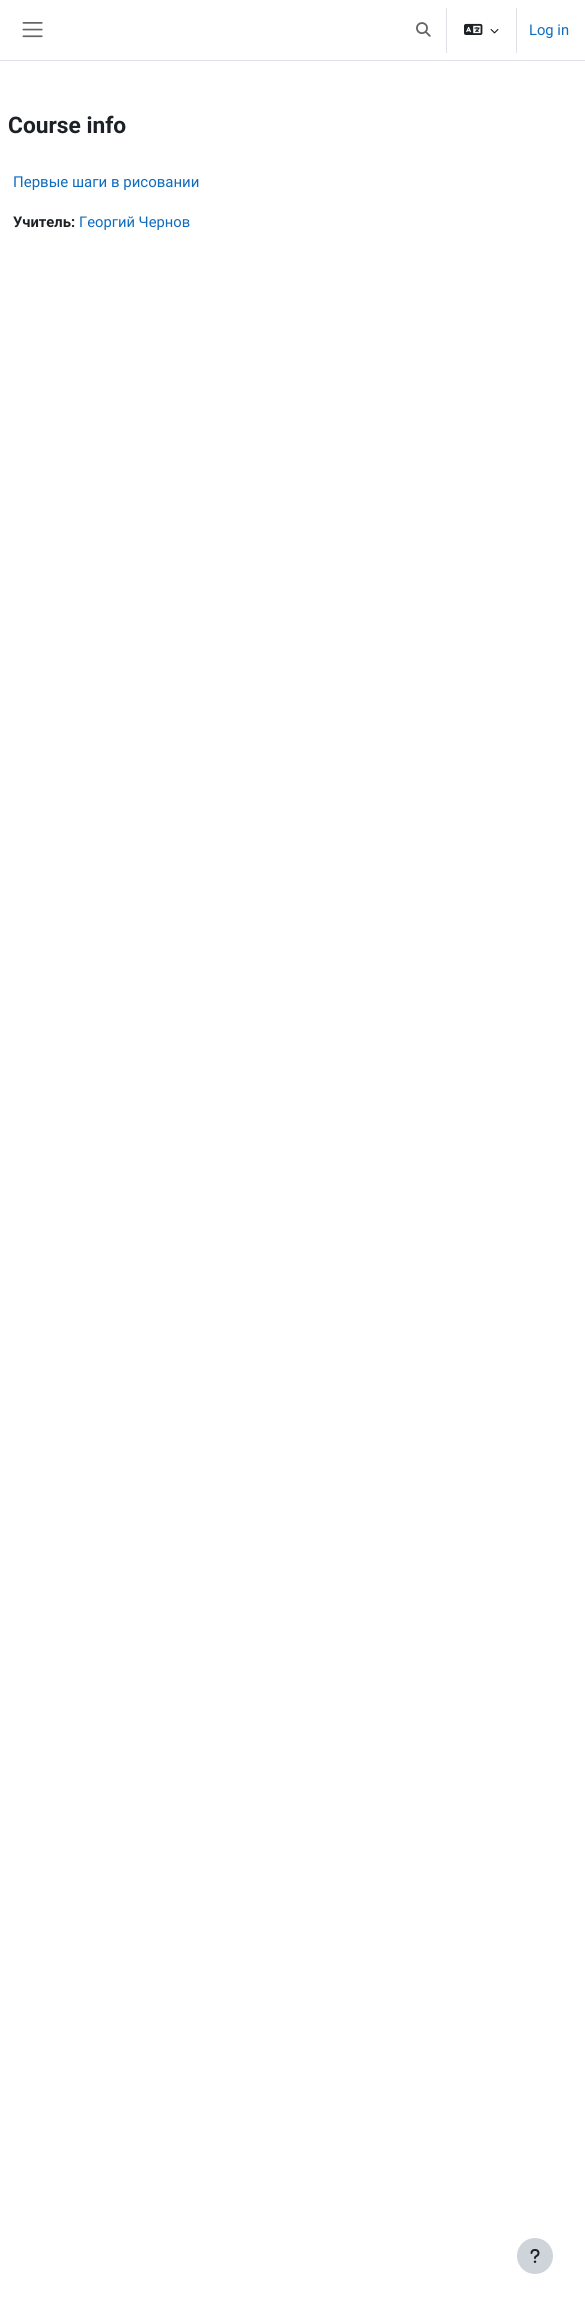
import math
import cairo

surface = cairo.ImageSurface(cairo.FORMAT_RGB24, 585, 2306)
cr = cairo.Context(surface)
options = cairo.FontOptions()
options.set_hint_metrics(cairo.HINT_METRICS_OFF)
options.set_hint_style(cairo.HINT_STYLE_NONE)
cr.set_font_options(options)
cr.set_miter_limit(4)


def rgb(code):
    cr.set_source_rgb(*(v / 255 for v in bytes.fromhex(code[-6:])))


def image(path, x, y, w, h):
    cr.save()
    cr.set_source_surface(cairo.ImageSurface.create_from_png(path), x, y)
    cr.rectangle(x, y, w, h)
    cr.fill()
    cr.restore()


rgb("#ffffff")
cr.paint()
rgb("#dee2e6")
cr.rectangle(0, 60, 585, 1)
cr.fill()
image("img/1.png", 22, 22, 21, 16)
image("img/2.png", 416, 22, 15, 15)
cr.rectangle(446, 8, 1, 45)
cr.fill()
image("img/3.png", 464, 23, 19, 12)
image("img/4.png", 490, 29, 9, 5)
cr.rectangle(516, 8, 1, 45)
cr.fill()
rgb("#ced4da")
cr.arc(535, 2256, 18, 0, 2 * math.pi)
cr.fill()
image("img/5.png", 530, 2249, 10, 14)
cr.select_font_face("Roboto")
cr.set_font_size(14.75)
rgb("#0f6cbf")
cr.move_to(529, 35)
cr.show_text("Log in")
cr.select_font_face("Roboto", cairo.FONT_SLANT_NORMAL, cairo.FONT_WEIGHT_BOLD)
cr.set_font_size(22.75)
rgb("#1d2125")
cr.move_to(8, 133)
cr.show_text("Course info")
cr.select_font_face("Roboto")
cr.set_font_size(15)
rgb("#0f6cbf")
cr.move_to(13, 187)
cr.show_text("Первые шаги в рисовании")
cr.select_font_face("Roboto", cairo.FONT_SLANT_NORMAL, cairo.FONT_WEIGHT_BOLD)
cr.set_font_size(14.75)
rgb("#1d2125")
cr.move_to(13, 227)
cr.show_text("Учитель:")
cr.select_font_face("Roboto")
rgb("#0f6cbf")
cr.move_to(79, 227)
cr.show_text("Георгий Чернов")
surface.write_to_png("page.png")
